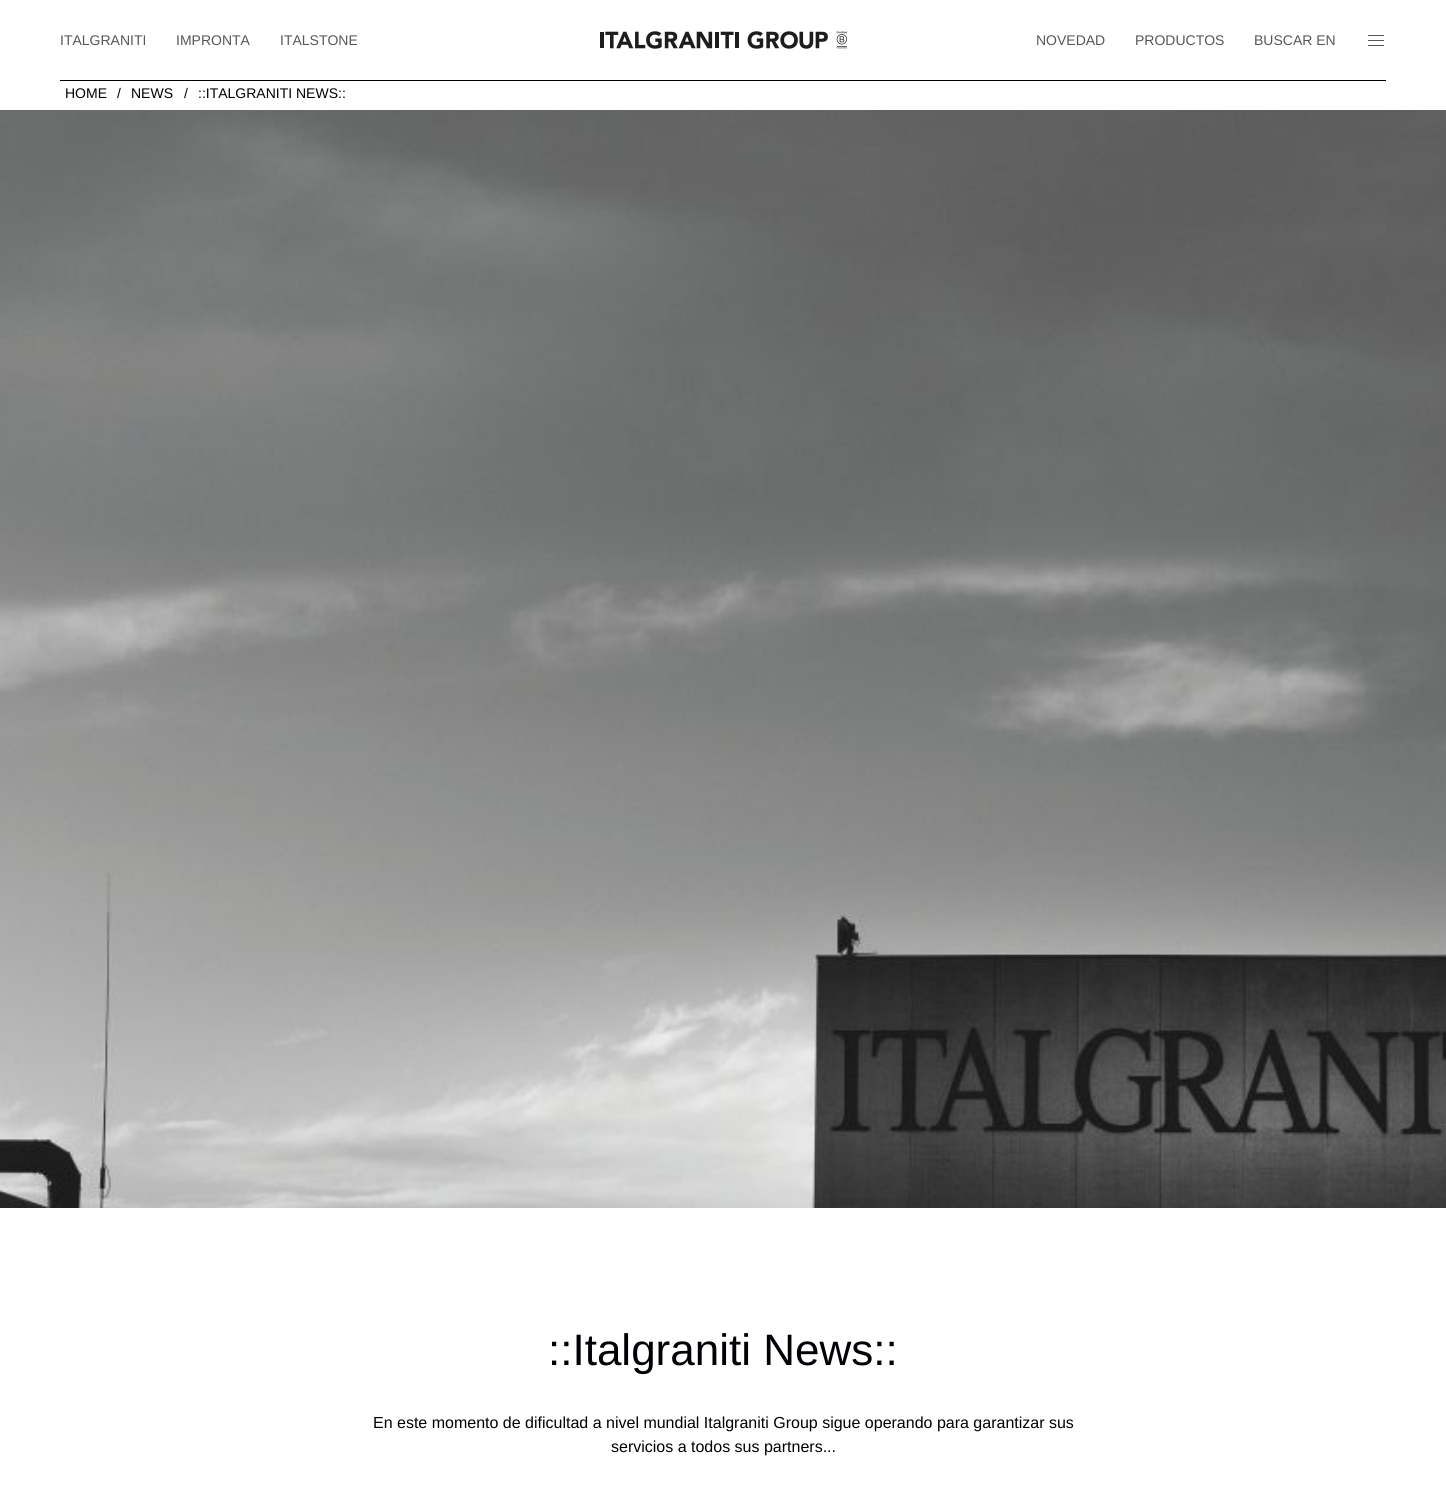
import math
import cairo

surface = cairo.ImageSurface(cairo.FORMAT_RGB24, 1446, 1510)
cr = cairo.Context(surface)
options = cairo.FontOptions()
options.set_hint_metrics(cairo.HINT_METRICS_OFF)
options.set_hint_style(cairo.HINT_STYLE_NONE)
cr.set_font_options(options)
cr.set_miter_limit(4)


def rgb(code):
    cr.set_source_rgb(*(v / 255 for v in bytes.fromhex(code[-6:])))


def image(path, x, y, w, h):
    cr.save()
    cr.set_source_surface(cairo.ImageSurface.create_from_png(path), x, y)
    cr.rectangle(x, y, w, h)
    cr.fill()
    cr.restore()


rgb("#ffffff")
cr.paint()
rgb("#000105")
cr.rectangle(60, 80, 1326, 1)
cr.fill()
image("img/1.png", 600, 31, 247, 18)
for x, y, w, h, color in [
    (1368, 35, 16, 1, "#575756"),
    (1368, 40, 16, 1, "#575756"),
    (1368, 45, 16, 1, "#575756"),
]:
    rgb(color)
    cr.rectangle(x, y, w, h)
    cr.fill()
image("img/2.png", 0, 110, 1446, 1098)
cr.select_font_face("Liberation Sans")
cr.set_font_size(14)
for x, y, s in [
    (60, 45, "ITALGRANITI"),
    (176, 45, "IMPRONTA"),
    (280, 45, "ITALSTONE"),
    (1036, 45, "NOVEDAD"),
    (1135, 45, "PRODUCTOS"),
    (1254, 45, "BUSCAR EN"),
]:
    cr.move_to(x, y)
    cr.show_text(s)
rgb("#000105")
for x, y, s in [
    (65, 98, "HOME"),
    (117, 98, "/"),
    (131, 98, "NEWS"),
    (184, 98, "/"),
    (198, 98, "::ITALGRANITI NEWS::"),
]:
    cr.move_to(x, y)
    cr.show_text(s)
cr.set_font_size(44)
cr.move_to(548, 1365)
cr.show_text("::Italgraniti News::")
cr.set_font_size(16)
cr.move_to(373, 1428)
cr.show_text("En este momento de dificultad a nivel mundial Italgraniti Group sigue operando para garantizar sus")
cr.move_to(611, 1452)
cr.show_text("servicios a todos sus partners...")
surface.write_to_png("page.png")
